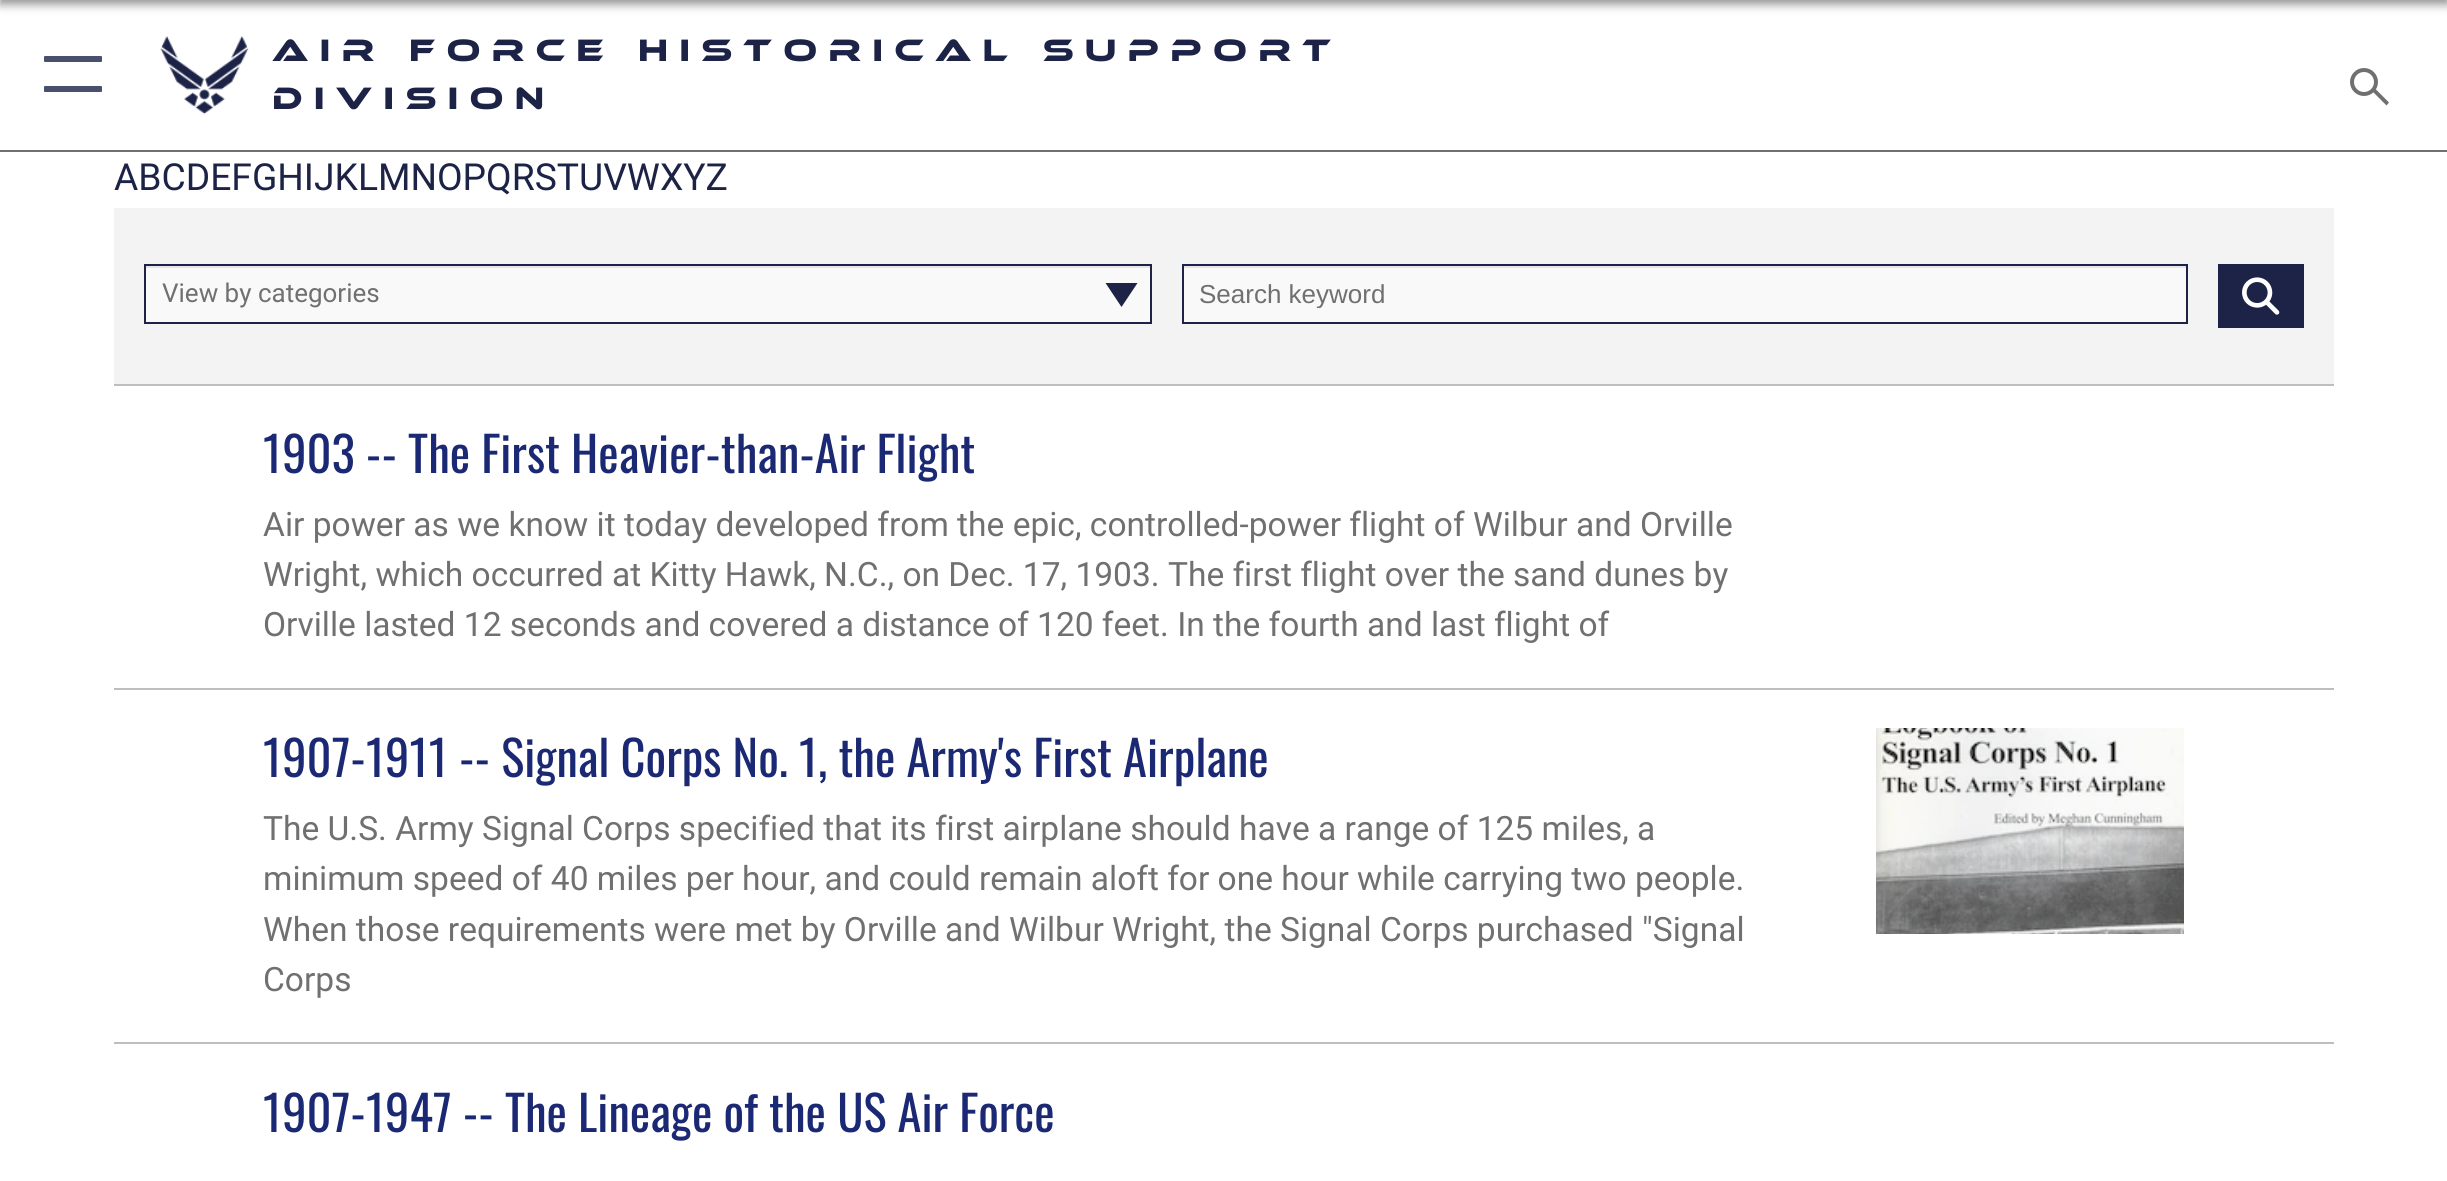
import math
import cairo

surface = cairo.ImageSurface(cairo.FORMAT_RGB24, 2447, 1181)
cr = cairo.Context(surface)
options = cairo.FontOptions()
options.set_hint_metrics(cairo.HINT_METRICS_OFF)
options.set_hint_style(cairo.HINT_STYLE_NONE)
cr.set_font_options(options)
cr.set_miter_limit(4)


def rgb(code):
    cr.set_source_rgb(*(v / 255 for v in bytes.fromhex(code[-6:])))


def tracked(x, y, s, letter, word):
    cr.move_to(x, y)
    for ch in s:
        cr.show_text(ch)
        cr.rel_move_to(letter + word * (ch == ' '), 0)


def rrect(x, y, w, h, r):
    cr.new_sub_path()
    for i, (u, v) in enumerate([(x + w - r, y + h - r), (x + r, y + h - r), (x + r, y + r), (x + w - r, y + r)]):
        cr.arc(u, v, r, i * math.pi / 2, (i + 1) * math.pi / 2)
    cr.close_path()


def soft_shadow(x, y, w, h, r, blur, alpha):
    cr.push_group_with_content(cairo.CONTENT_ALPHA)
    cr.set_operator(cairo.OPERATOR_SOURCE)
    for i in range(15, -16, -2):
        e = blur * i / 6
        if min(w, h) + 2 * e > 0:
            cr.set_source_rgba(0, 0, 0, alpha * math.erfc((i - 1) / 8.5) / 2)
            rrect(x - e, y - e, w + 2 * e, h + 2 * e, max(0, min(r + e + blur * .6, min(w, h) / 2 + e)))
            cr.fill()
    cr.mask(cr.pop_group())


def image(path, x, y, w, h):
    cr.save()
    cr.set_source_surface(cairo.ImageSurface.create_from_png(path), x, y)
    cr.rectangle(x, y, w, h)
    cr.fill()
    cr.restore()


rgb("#ffffff")
cr.paint()
rgb("#1a1a1a")
soft_shadow(0, -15, 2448, 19, 0, 5, 0.5)
rgb("#707070")
cr.rectangle(0, 150, 2447, 2)
cr.fill()
rgb("#49506d")
rrect(44, 56, 58, 6, 1)
cr.fill()
rrect(44, 86, 58, 6, 1)
cr.fill()
image("img/1.png", 160, 36, 89, 79)
cr.arc(2364, 82, 12, 0, 2 * math.pi)
rgb("#707070")
cr.set_line_width(4)
cr.stroke()
cr.new_path()
cr.move_to(2375, 88.5)
cr.line_to(2389, 102.5)
cr.line_to(2386.5, 105.5)
cr.line_to(2372, 91)
cr.close_path()
cr.fill()
for x, y, w, h, color in [
    (114, 208, 2220, 176, "#f3f3f3"),
    (146, 268, 1004, 54, "#f9f9f9"),
    (146, 266, 1004, 2, "#e6e6e6"),
]:
    rgb(color)
    cr.rectangle(x, y, w, h)
    cr.fill()
cr.rectangle(145, 265, 1006, 58)
rgb("#1c2347")
cr.set_line_width(2)
cr.stroke()
cr.new_path()
cr.move_to(1105.5, 283)
cr.line_to(1137.5, 283)
cr.line_to(1121.5, 307)
cr.close_path()
cr.fill()
rgb("#f9f9f9")
cr.rectangle(1184, 268, 1002, 54)
cr.fill()
rgb("#e6e6e6")
cr.rectangle(1184, 266, 1002, 2)
cr.fill()
cr.rectangle(1183, 265, 1004, 58)
rgb("#1c2347")
cr.stroke()
cr.rectangle(2218, 264, 86, 64)
cr.fill()
image("img/2.png", 2242, 277, 38, 38)
rgb("#c1bdbd")
cr.rectangle(114, 384, 2220, 2)
cr.fill()
cr.rectangle(114, 688, 2220, 2)
cr.fill()
image("img/3.png", 1876, 728, 308, 206)
cr.rectangle(114, 1042, 2220, 2)
cr.fill()
cr.select_font_face("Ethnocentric")
cr.set_font_size(32)
rgb("#1c2347")
tracked(272, 61, "Air Force Historical Support", 11.2, 0)
tracked(272, 109, "Division", 11.2, 0)
cr.select_font_face("Roboto")
cr.set_font_size(37.25)
cr.move_to(114, 190)
cr.show_text("ABCDEFGHIJKLMNOPQRSTUVWXYZ")
cr.set_font_size(26)
rgb("#707070")
cr.move_to(162, 302)
cr.show_text("View by categories")
cr.save()
cr.rectangle(1200, 278, 970, 30)
cr.clip()
cr.select_font_face("Liberation Sans")
cr.move_to(1199, 303)
cr.show_text("Search keyword")
cr.restore()
cr.select_font_face("Oswald")
cr.set_font_size(48.5)
rgb("#1b2974")
cr.move_to(263, 473)
cr.show_text("1903 -- The First Heavier-than-Air Flight")
cr.select_font_face("Roboto")
cr.set_font_size(33.55)
rgb("#707070")
for x, y, s in [
    (263, 536, "Air power as we know it today developed from the epic, controlled-power flight of Wilbur and Orville"),
    (263, 586, "Wright, which occurred at Kitty Hawk, N.C., on Dec. 17, 1903. The first flight over the sand dunes by"),
    (263, 636, "Orville lasted 12 seconds and covered a distance of 120 feet. In the fourth and last flight of"),
]:
    cr.move_to(x, y)
    cr.show_text(s)
cr.select_font_face("Oswald")
cr.set_font_size(48.5)
rgb("#1b2974")
cr.move_to(263, 777)
cr.show_text("1907-1911 -- Signal Corps No. 1, the Army's First Airplane")
cr.select_font_face("Roboto")
cr.set_font_size(33.55)
rgb("#707070")
for x, y, s in [
    (263, 840, "The U.S. Army Signal Corps specified that its first airplane should have a range of 125 miles, a"),
    (263, 890, "minimum speed of 40 miles per hour, and could remain aloft for one hour while carrying two people."),
    (263, 941, "When those requirements were met by Orville and Wilbur Wright, the Signal Corps purchased \"Signal"),
    (263, 991, "Corps"),
]:
    cr.move_to(x, y)
    cr.show_text(s)
cr.select_font_face("Oswald")
cr.set_font_size(48.5)
rgb("#1b2974")
cr.move_to(263, 1132)
cr.show_text("1907-1947 -- The Lineage of the US Air Force")
surface.write_to_png("page.png")
